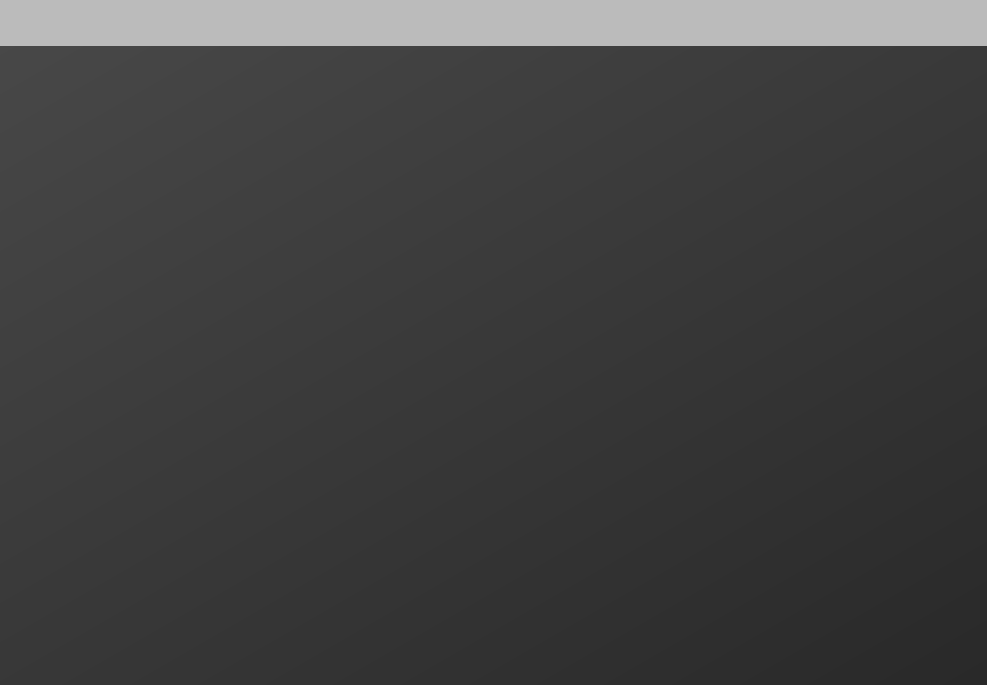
import math
import cairo

surface = cairo.ImageSurface(cairo.FORMAT_RGB24, 987, 685)
cr = cairo.Context(surface)
options = cairo.FontOptions()
options.set_hint_metrics(cairo.HINT_METRICS_OFF)
options.set_hint_style(cairo.HINT_STYLE_NONE)
cr.set_font_options(options)
cr.set_miter_limit(4)


def rgb(code):
    cr.set_source_rgb(*(v / 255 for v in bytes.fromhex(code[-6:])))


rgb("#ffffff")
cr.paint()
gradient = cairo.LinearGradient(943, 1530, 44, -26)
gradient.add_color_stop_rgba(0, 0.078, 0.078, 0.078, 1)
gradient.add_color_stop_rgba(1, 0.286, 0.286, 0.286, 1)
cr.set_source(gradient)
cr.rectangle(0, 46, 987, 639)
cr.fill()
rgb("#bbbbbb")
cr.rectangle(0, 0, 987, 46)
cr.fill()
surface.write_to_png("page.png")
